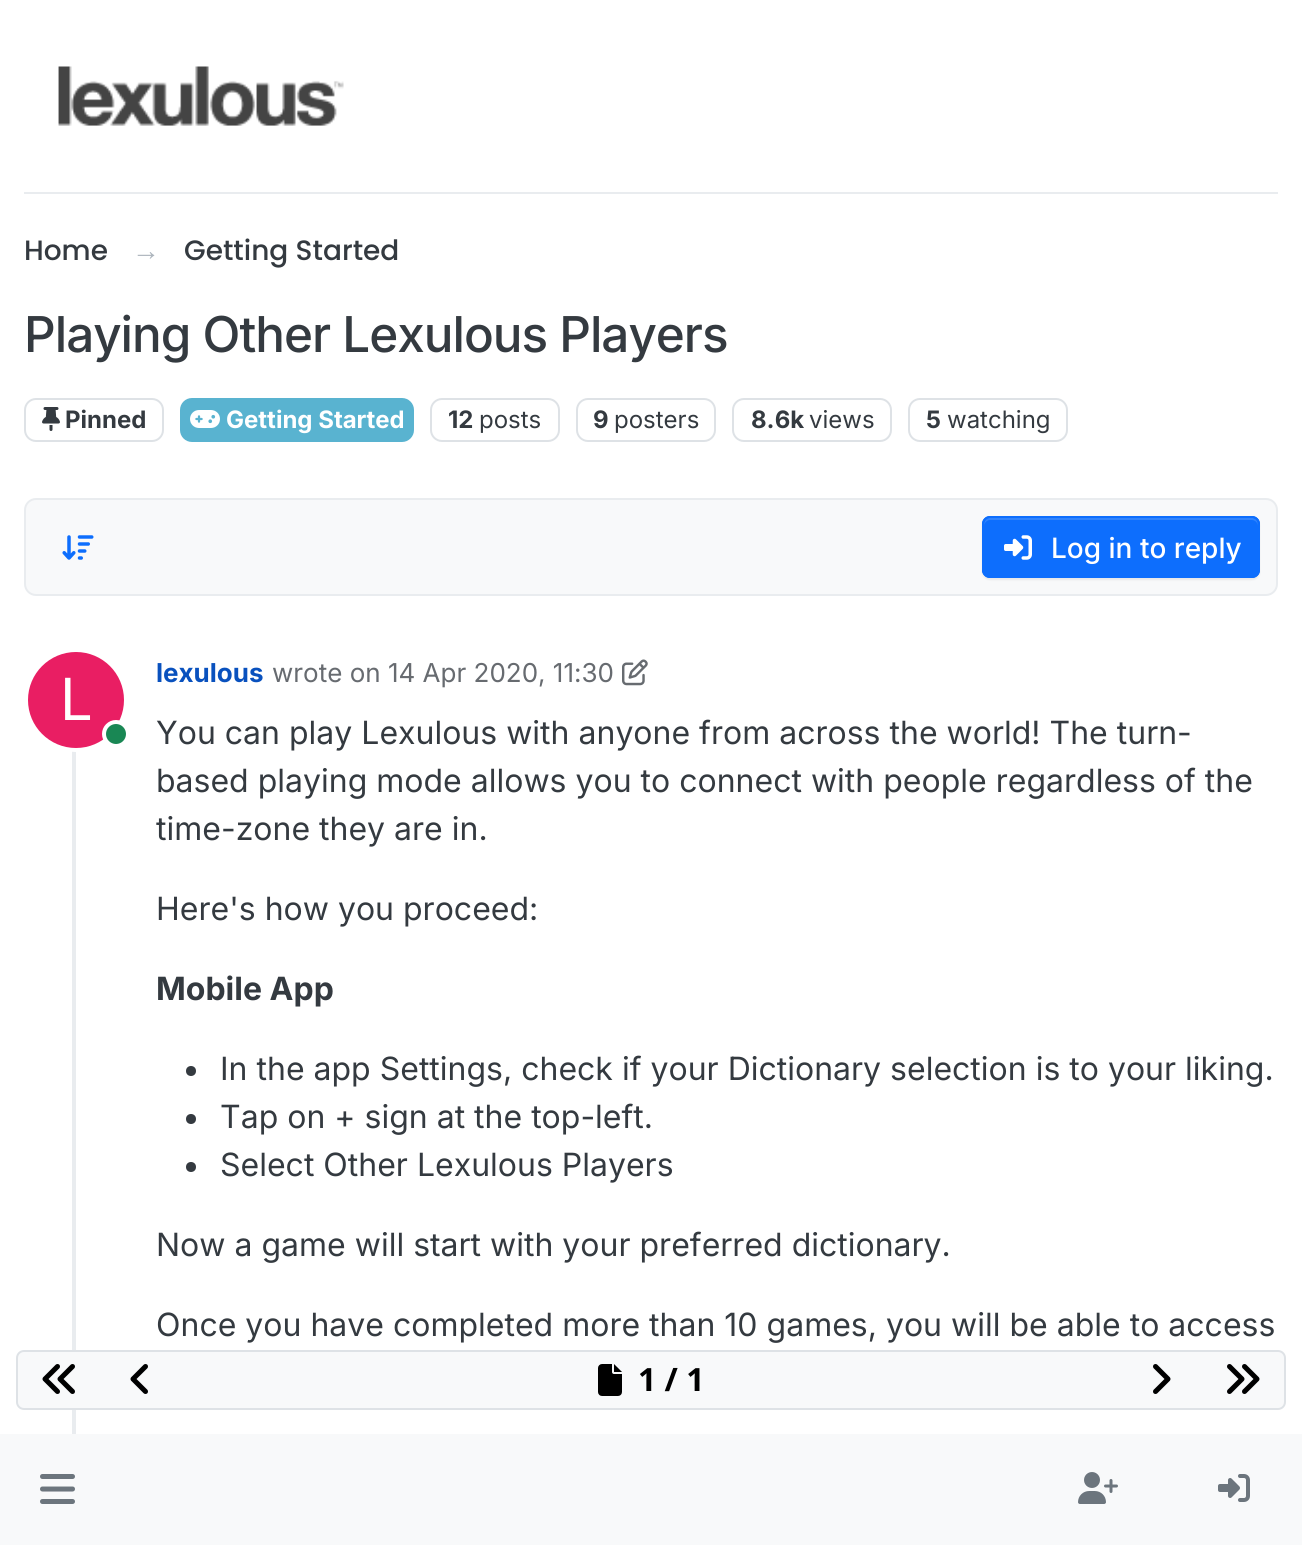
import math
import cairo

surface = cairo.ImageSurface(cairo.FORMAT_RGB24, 1302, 1545)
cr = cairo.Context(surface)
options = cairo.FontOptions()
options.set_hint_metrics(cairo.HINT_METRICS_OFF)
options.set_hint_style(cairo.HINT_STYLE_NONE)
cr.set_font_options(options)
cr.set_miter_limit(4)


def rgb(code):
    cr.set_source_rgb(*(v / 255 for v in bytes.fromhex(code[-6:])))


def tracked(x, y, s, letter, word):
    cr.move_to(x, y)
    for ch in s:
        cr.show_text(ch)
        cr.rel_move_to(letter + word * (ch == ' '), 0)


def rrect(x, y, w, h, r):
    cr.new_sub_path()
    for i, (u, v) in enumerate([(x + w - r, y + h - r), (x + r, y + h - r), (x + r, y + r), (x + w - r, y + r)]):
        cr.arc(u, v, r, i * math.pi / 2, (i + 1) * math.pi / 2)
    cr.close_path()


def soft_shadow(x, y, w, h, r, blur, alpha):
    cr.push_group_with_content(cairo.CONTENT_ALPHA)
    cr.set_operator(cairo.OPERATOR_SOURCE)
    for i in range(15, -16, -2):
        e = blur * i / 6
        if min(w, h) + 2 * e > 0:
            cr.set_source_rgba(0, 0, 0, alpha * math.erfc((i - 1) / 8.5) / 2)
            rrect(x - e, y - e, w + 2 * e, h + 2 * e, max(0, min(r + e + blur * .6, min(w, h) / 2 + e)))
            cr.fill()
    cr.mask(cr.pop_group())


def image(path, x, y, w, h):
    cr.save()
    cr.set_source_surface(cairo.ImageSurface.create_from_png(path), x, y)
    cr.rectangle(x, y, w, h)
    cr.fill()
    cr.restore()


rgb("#ffffff")
cr.paint()
rgb("#e9ecef")
cr.rectangle(24, 192, 1254, 2)
cr.fill()
image("img/1.png", 58, 66, 286, 60)
rrect(25, 399, 138, 42, 11)
rgb("#dee2e6")
cr.stroke()
image("img/2.png", 42, 407, 18, 24)
rgb("#59b3d0")
rrect(181, 399, 232, 42, 11)
cr.fill_preserve()
cr.stroke()
image("img/3.png", 190, 410, 30, 18)
rrect(431, 399, 128, 42, 11)
rgb("#dee2e6")
cr.stroke()
rrect(577, 399, 138, 42, 11)
cr.stroke()
rrect(733, 399, 158, 42, 11)
cr.stroke()
rrect(909, 399, 158, 42, 11)
cr.stroke()
rgb("#f8f9fa")
rrect(25, 499, 1252, 96, 11)
cr.fill_preserve()
rgb("#e9ecef")
cr.stroke()
image("img/4.png", 62, 535, 32, 25)
rgb("#000000")
soft_shadow(982, 518, 278, 62, 8, 1, 0.07)
rgb("#0d6efd")
rrect(982, 516, 278, 62, 8)
cr.fill()
rgb("#3184fd")
cr.new_path()
cr.move_to(990, 520)
cr.line_to(1252, 520)
cr.curve_to(1255, 520, 1258, 523, 1258, 526)
cr.curve_to(1258, 523, 1257, 519, 1253, 518)
cr.line_to(989, 518)
cr.curve_to(985, 519, 984, 523, 984, 526)
cr.curve_to(984, 523, 987, 520, 990, 520)
cr.close_path()
cr.fill()
rrect(983, 517, 276, 60, 7)
rgb("#0d6efd")
cr.stroke()
image("img/5.png", 1004, 535, 28, 25)
rgb("#e9ecef")
cr.rectangle(72, 652, 4, 782)
cr.fill()
cr.arc(76, 700, 50, 0, 2 * math.pi)
rgb("#ffffff")
cr.set_line_width(4)
cr.stroke()
rgb("#e91e63")
cr.arc(76, 700, 48, 0, 2 * math.pi)
cr.fill()
rgb("#198754")
cr.arc(116, 734, 12, 0, 2 * math.pi)
cr.fill_preserve()
rgb("#ffffff")
cr.stroke()
image("img/6.png", 622, 659, 26, 27)
rgb("#343a40")
cr.arc(191, 1071, 5, 0, 2 * math.pi)
cr.fill()
cr.arc(191, 1119, 5, 0, 2 * math.pi)
cr.fill()
cr.arc(191, 1167, 5, 0, 2 * math.pi)
cr.fill()
rgb("#f8f9fa")
rrect(17, 1351, 1268, 58, 7)
cr.fill_preserve()
rgb("#dee2e6")
cr.set_line_width(2)
cr.stroke()
image("img/7.png", 42, 1364, 33, 30)
image("img/8.png", 130, 1364, 18, 30)
image("img/9.png", 598, 1364, 24, 32)
image("img/10.png", 1153, 1364, 18, 30)
image("img/11.png", 1227, 1364, 33, 30)
rgb("#f8f9fa")
cr.rectangle(0, 1434, 1302, 111)
cr.fill()
image("img/12.png", 40, 1474, 35, 30)
image("img/13.png", 1078, 1472, 40, 32)
image("img/14.png", 1218, 1474, 32, 28)
cr.select_font_face("Poppins Medium")
cr.set_font_size(28)
rgb("#343a40")
cr.move_to(24, 260)
cr.show_text("Home")
cr.select_font_face("Liberation Sans")
rgb("#adb5bd")
cr.move_to(132, 260)
cr.show_text("→")
cr.select_font_face("Poppins Medium")
rgb("#343a40")
cr.move_to(184, 260)
cr.show_text("Getting Started")
cr.select_font_face("Inter Medium")
cr.set_font_size(49.4)
tracked(24, 352, "Playing Other Lexulous Players", -1, 0)
cr.select_font_face("Inter", cairo.FONT_SLANT_NORMAL, cairo.FONT_WEIGHT_BOLD)
cr.set_font_size(24)
cr.move_to(65, 428)
cr.show_text("Pinned")
rgb("#ffffff")
cr.move_to(226, 428)
cr.show_text("Getting Started")
rgb("#343a40")
cr.move_to(448, 428)
cr.show_text("12")
cr.select_font_face("Inter")
cr.move_to(479, 428)
cr.show_text("posts")
cr.select_font_face("Inter", cairo.FONT_SLANT_NORMAL, cairo.FONT_WEIGHT_BOLD)
cr.move_to(593, 428)
cr.show_text("9")
cr.select_font_face("Inter")
cr.move_to(614, 428)
cr.show_text("posters")
cr.select_font_face("Inter", cairo.FONT_SLANT_NORMAL, cairo.FONT_WEIGHT_BOLD)
cr.move_to(751, 428)
cr.show_text("8.6k")
cr.select_font_face("Inter")
cr.move_to(809, 428)
cr.show_text("views")
cr.select_font_face("Inter", cairo.FONT_SLANT_NORMAL, cairo.FONT_WEIGHT_BOLD)
cr.move_to(926, 428)
cr.show_text("5")
cr.select_font_face("Inter")
cr.move_to(947, 428)
cr.show_text("watching")
cr.select_font_face("Inter Medium")
cr.set_font_size(28)
rgb("#ffffff")
cr.move_to(1051, 558)
cr.show_text("Log in to reply")
cr.select_font_face("Inter")
cr.set_font_size(58)
cr.move_to(60, 720)
cr.show_text("L")
cr.select_font_face("Inter", cairo.FONT_SLANT_NORMAL, cairo.FONT_WEIGHT_BOLD)
cr.set_font_size(26)
rgb("#0951be")
cr.move_to(156, 682)
cr.show_text("lexulous")
cr.select_font_face("Inter")
rgb("#676b70")
cr.move_to(272, 682)
cr.show_text("wrote on 14 Apr 2020, 11:30")
cr.set_font_size(32)
rgb("#343a40")
for x, y, s in [
    (156, 744, "You can play Lexulous with anyone from across the world! The turn-"),
    (156, 792, "based playing mode allows you to connect with people regardless of the"),
    (156, 840, "time-zone they are in."),
    (156, 920, "Here's how you proceed:"),
]:
    cr.move_to(x, y)
    cr.show_text(s)
cr.select_font_face("Inter", cairo.FONT_SLANT_NORMAL, cairo.FONT_WEIGHT_BOLD)
cr.move_to(156, 1000)
cr.show_text("Mobile App")
cr.select_font_face("Inter")
for x, y, s in [
    (220, 1080, "In the app Settings, check if your Dictionary selection is to your liking."),
    (220, 1128, "Tap on + sign at the top-left."),
    (220, 1176, "Select Other Lexulous Players"),
    (156, 1256, "Now a game will start with your preferred dictionary."),
    (156, 1336, "Once you have completed more than 10 games, you will be able to access"),
]:
    cr.move_to(x, y)
    cr.show_text(s)
cr.select_font_face("Noto Sans", cairo.FONT_SLANT_NORMAL, cairo.FONT_WEIGHT_BOLD)
rgb("#000000")
cr.move_to(638, 1391)
cr.show_text("1 / 1")
surface.write_to_png("page.png")
